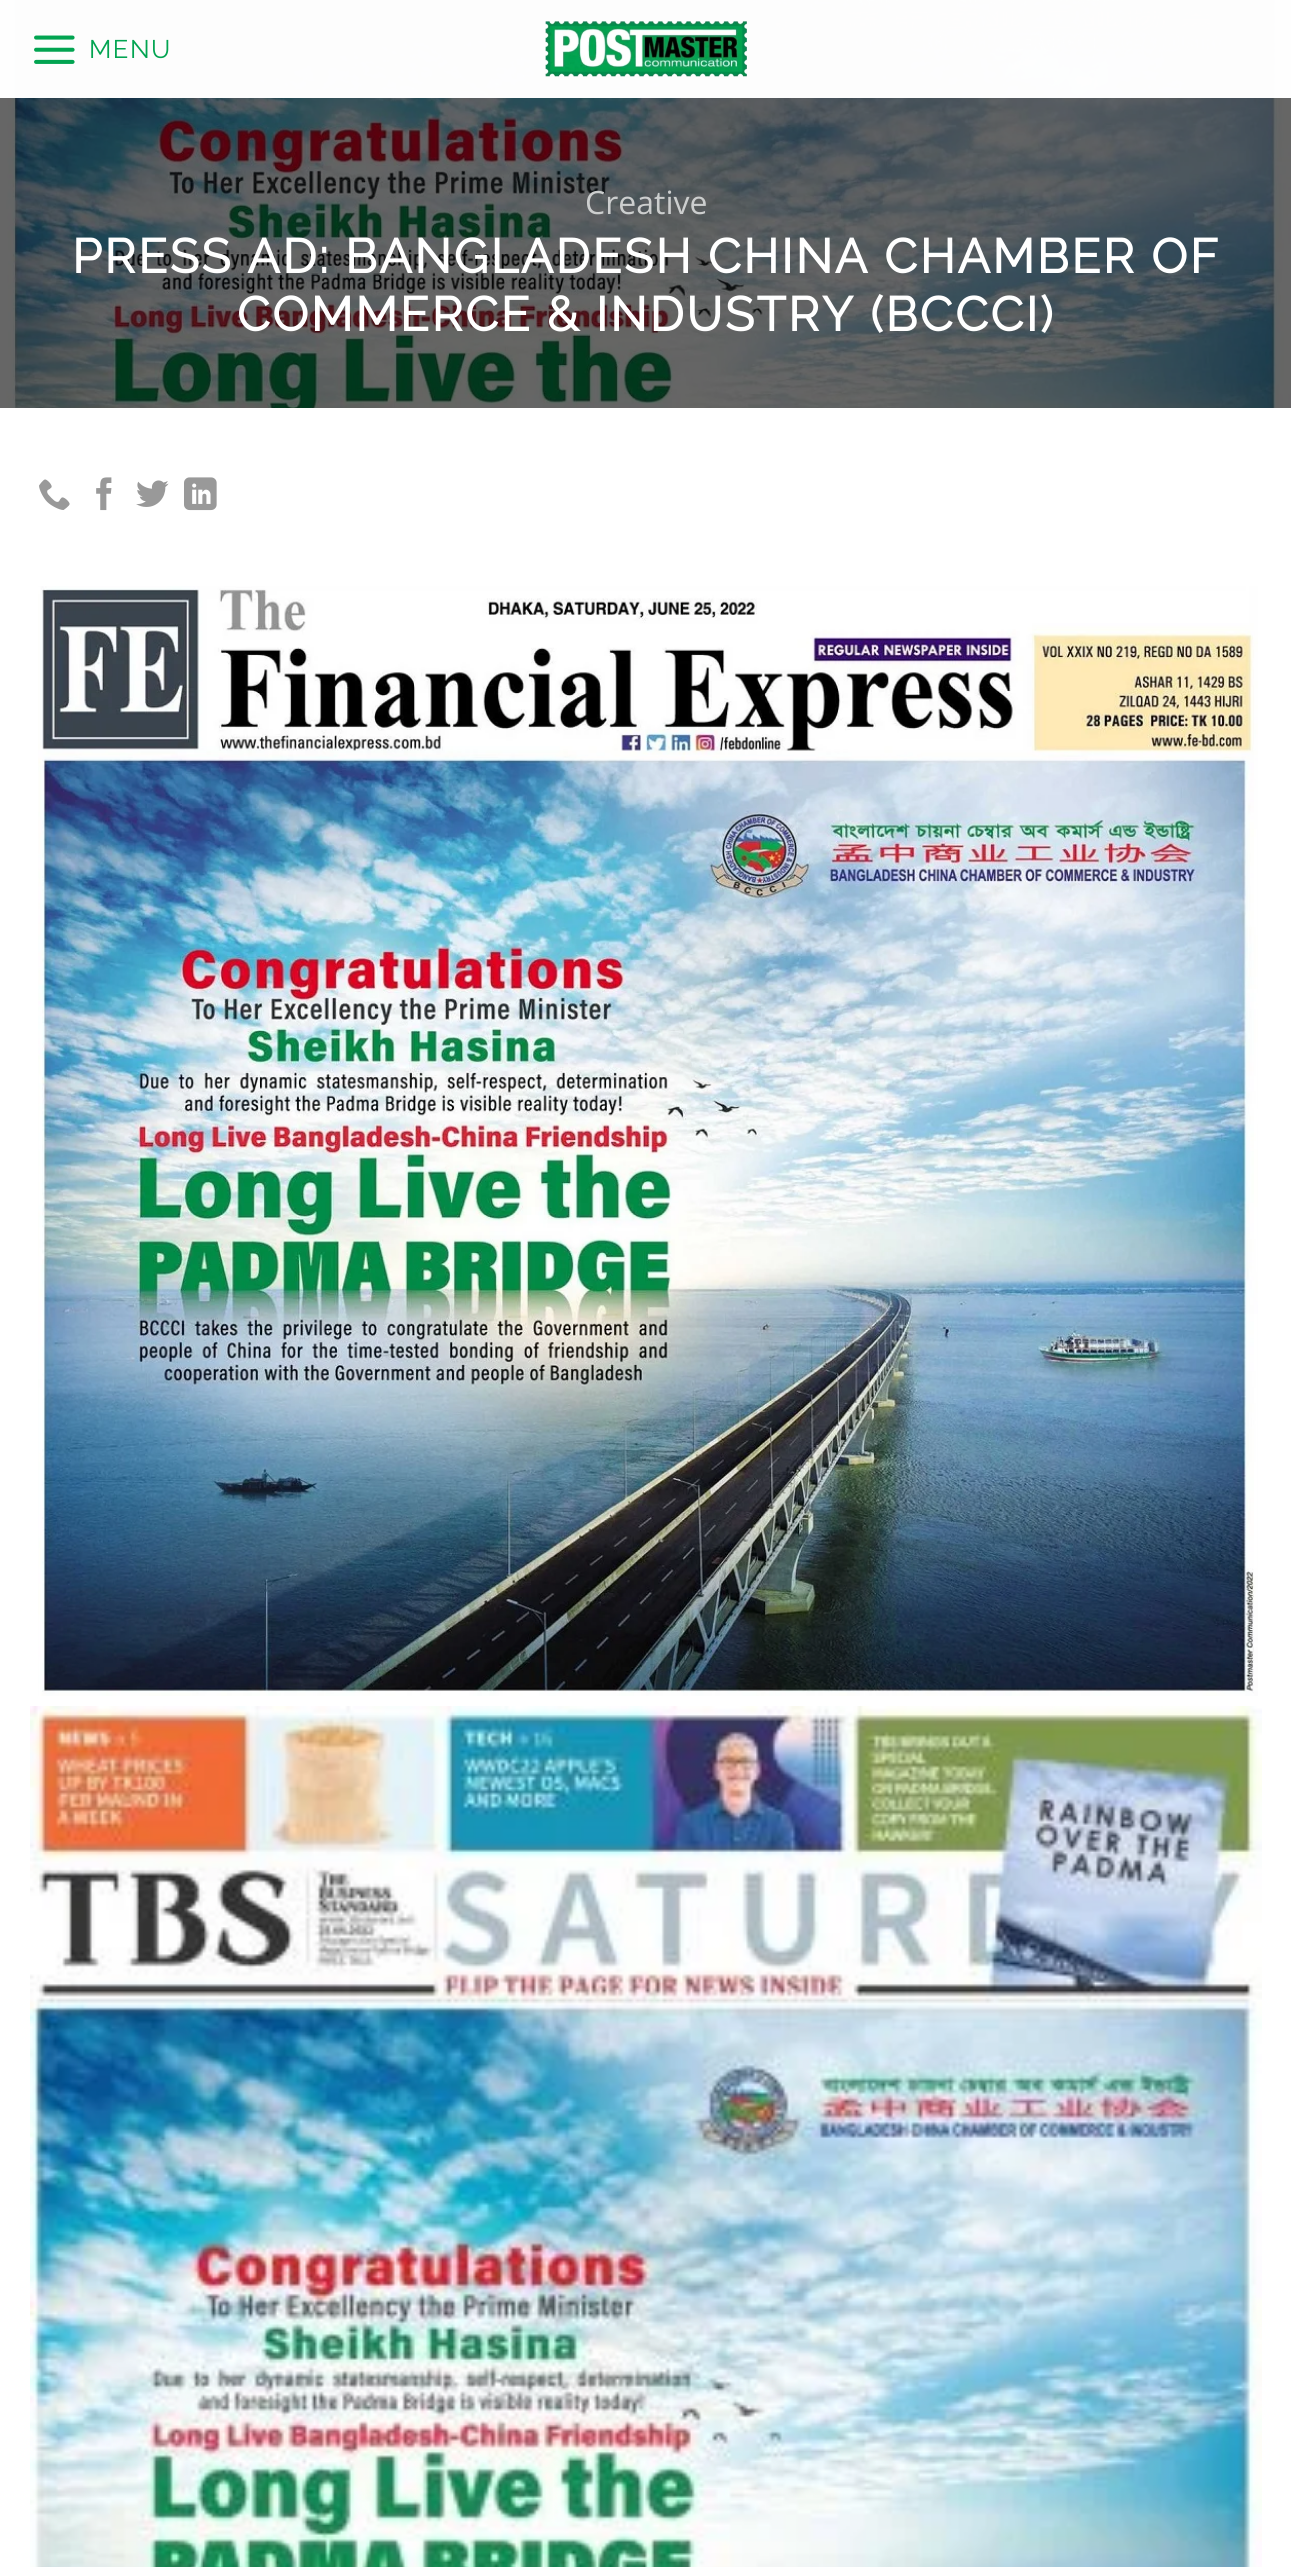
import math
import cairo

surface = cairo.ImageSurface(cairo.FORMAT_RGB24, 1291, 2567)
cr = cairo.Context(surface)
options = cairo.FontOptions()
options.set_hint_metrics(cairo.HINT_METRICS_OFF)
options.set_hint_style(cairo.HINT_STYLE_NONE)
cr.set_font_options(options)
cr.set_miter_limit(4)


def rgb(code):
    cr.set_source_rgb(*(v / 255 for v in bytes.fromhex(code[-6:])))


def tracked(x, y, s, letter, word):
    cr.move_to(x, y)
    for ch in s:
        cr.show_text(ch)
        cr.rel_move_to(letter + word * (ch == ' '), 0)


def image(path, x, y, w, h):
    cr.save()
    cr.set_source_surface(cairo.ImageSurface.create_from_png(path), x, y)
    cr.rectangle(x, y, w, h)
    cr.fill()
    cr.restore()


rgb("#ffffff")
cr.paint()
image("img/3.png", 0, 0, 1291, 408)
cr.set_source_rgba(1, 1, 1, 0.9)
cr.rectangle(0, 0, 1291, 98)
cr.fill()
cr.rectangle(0, 0, 1291, 98)
cr.fill()
image("img/1.png", 34, 35, 41, 29)
image("img/2.png", 545, 21, 202, 56)
image("img/4.png", 39, 479, 31, 31)
image("img/5.png", 96, 477, 16, 34)
image("img/6.png", 136, 480, 33, 27)
image("img/7.png", 184, 477, 33, 34)
image("img/8.png", 38, 586, 1220, 1110)
image("img/9.png", 30, 1706, 1232, 861)
cr.select_font_face("Raleway Thin")
cr.set_font_size(25.5)
rgb("#02a451")
tracked(89, 58, "MENU", 1.5, 0)
cr.select_font_face("Open Sans")
cr.set_font_size(32)
rgb("#cccece")
cr.move_to(585, 214)
cr.show_text("Creative")
cr.select_font_face("Raleway", cairo.FONT_SLANT_NORMAL, cairo.FONT_WEIGHT_BOLD)
cr.set_font_size(48)
rgb("#ffffff")
tracked(72, 273, "PRESS AD: BANGLADESH CHINA CHAMBER OF", 2.4, 0)
tracked(237, 331, "COMMERCE & INDUSTRY (BCCCI)", 2.4, 0)
surface.write_to_png("page.png")
